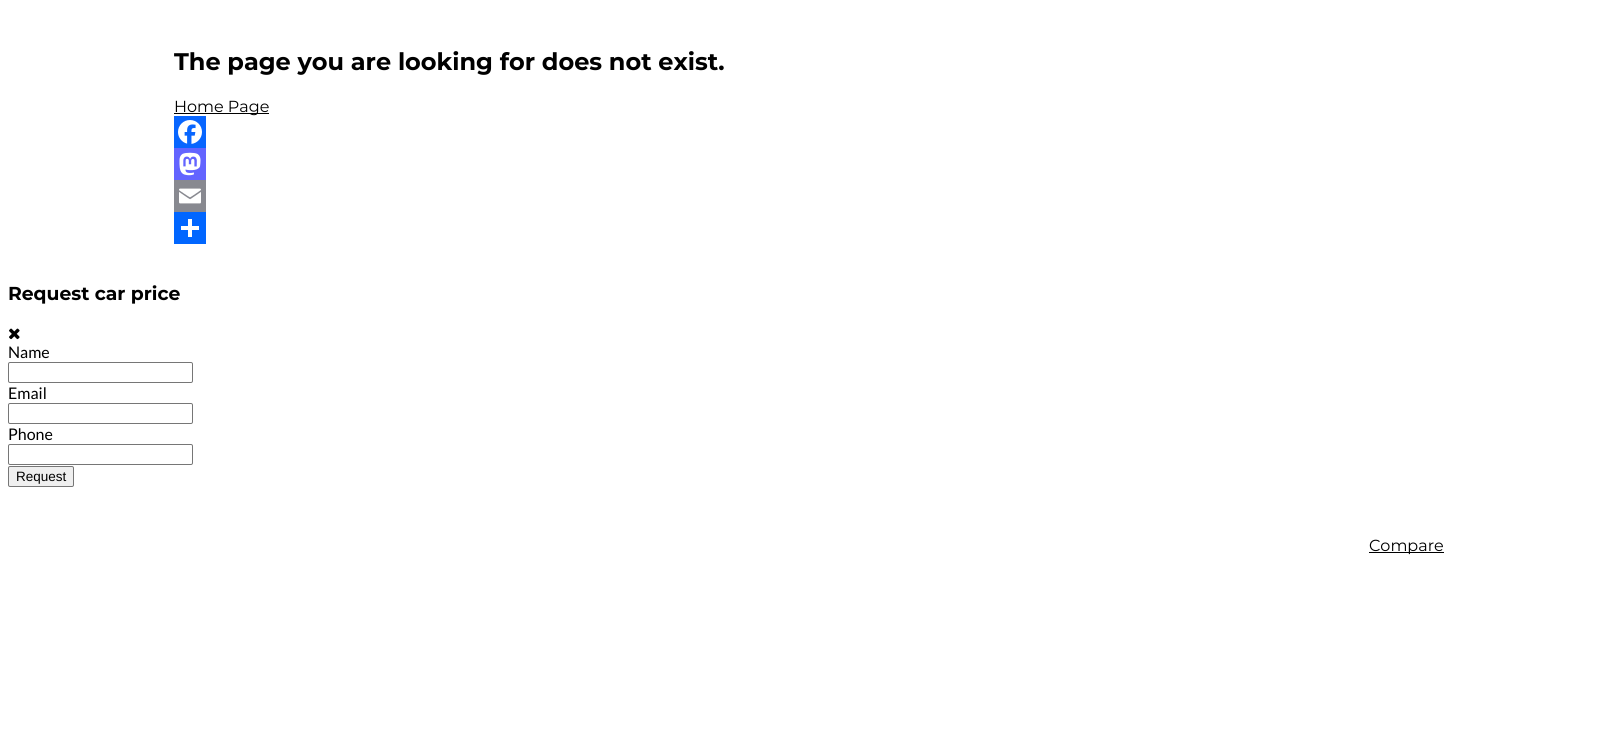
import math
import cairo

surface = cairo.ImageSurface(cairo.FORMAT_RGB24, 1617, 735)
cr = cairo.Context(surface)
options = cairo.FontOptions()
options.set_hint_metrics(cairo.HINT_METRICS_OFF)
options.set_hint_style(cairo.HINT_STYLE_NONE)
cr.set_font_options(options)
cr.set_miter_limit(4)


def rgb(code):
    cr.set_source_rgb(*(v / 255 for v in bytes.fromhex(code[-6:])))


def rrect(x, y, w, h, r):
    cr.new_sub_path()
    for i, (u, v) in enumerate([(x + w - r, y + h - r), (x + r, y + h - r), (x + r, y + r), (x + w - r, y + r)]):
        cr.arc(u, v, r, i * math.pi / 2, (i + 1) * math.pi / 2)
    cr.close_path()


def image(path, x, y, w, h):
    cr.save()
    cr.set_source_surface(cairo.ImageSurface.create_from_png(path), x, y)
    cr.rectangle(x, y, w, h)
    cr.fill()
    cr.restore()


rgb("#ffffff")
cr.paint()
rgb("#000000")
cr.rectangle(174, 113, 95, 1)
cr.fill()
rgb("#0866ff")
cr.rectangle(174, 116, 32, 32)
cr.fill()
image("img/1.png", 178, 120, 24, 24)
rgb("#6364ff")
cr.rectangle(174, 148, 32, 32)
cr.fill()
image("img/2.png", 179, 152, 22, 24)
rgb("#888990")
cr.rectangle(174, 180, 32, 32)
cr.fill()
image("img/3.png", 179, 188, 22, 16)
for x, y, w, h, color in [
    (174, 212, 32, 32, "#0166ff"),
    (188, 219, 4, 18, "#ffffff"),
    (181, 226, 18, 4, "#ffffff"),
]:
    rgb(color)
    cr.rectangle(x, y, w, h)
    cr.fill()
image("img/4.png", 9, 328, 11, 12)
rrect(8.5, 362.5, 184, 20, 1.5)
rgb("#767676")
cr.set_line_width(1)
cr.stroke()
rrect(8.5, 403.5, 184, 20, 1.5)
cr.stroke()
rrect(8.5, 444.5, 184, 20, 1.5)
cr.stroke()
rgb("#efefef")
rrect(8.5, 466.5, 65, 20, 1.5)
cr.fill_preserve()
rgb("#767676")
cr.stroke()
rgb("#000000")
cr.rectangle(1369, 552, 75, 1)
cr.fill()
cr.select_font_face("Montserrat", cairo.FONT_SLANT_NORMAL, cairo.FONT_WEIGHT_BOLD)
cr.set_font_size(24)
cr.move_to(174, 70)
cr.show_text("The page you are looking for does not exist.")
cr.select_font_face("Montserrat")
cr.set_font_size(16)
cr.move_to(174, 112)
cr.show_text("Home Page")
cr.select_font_face("Montserrat", cairo.FONT_SLANT_NORMAL, cairo.FONT_WEIGHT_BOLD)
cr.set_font_size(18.75)
cr.move_to(8, 300)
cr.show_text("Request car price")
cr.select_font_face("Lato")
cr.set_font_size(16)
for x, y, s in [
    (8, 358, "Name"),
    (8, 399, "Email"),
    (8, 440, "Phone"),
]:
    cr.move_to(x, y)
    cr.show_text(s)
cr.select_font_face("Liberation Sans")
cr.set_font_size(13.5)
cr.move_to(16, 481)
cr.show_text("Request")
cr.select_font_face("Montserrat")
cr.set_font_size(16)
cr.move_to(1369, 551)
cr.show_text("Compare")
surface.write_to_png("page.png")
